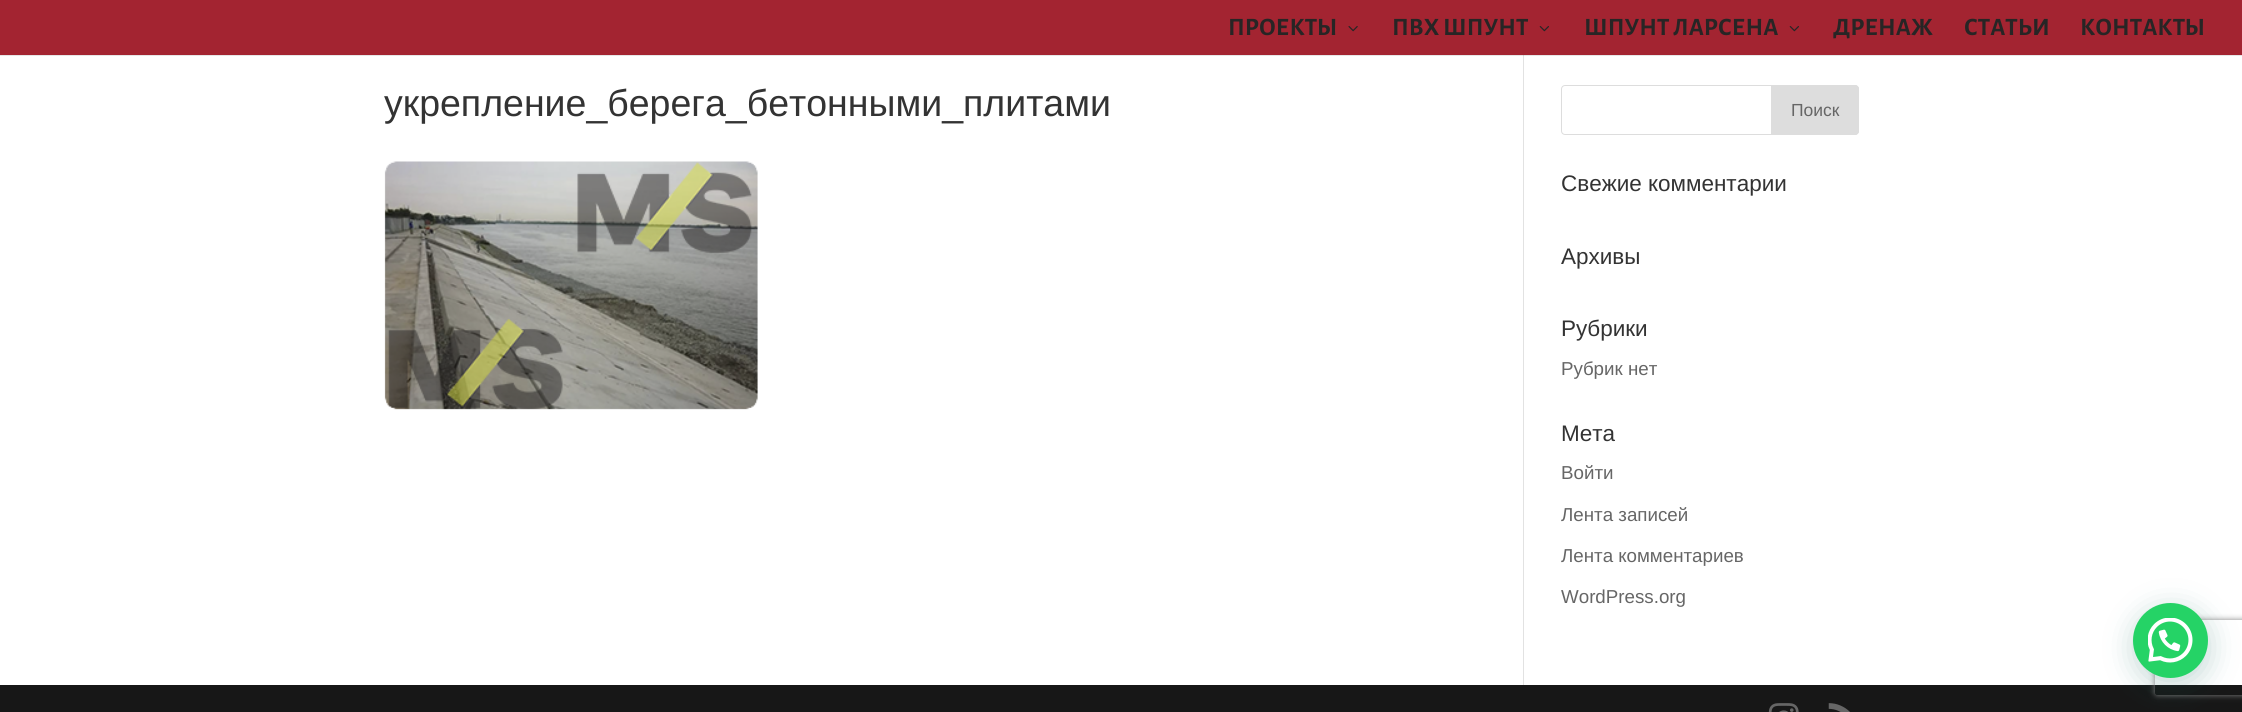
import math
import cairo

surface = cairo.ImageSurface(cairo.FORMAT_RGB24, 2242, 712)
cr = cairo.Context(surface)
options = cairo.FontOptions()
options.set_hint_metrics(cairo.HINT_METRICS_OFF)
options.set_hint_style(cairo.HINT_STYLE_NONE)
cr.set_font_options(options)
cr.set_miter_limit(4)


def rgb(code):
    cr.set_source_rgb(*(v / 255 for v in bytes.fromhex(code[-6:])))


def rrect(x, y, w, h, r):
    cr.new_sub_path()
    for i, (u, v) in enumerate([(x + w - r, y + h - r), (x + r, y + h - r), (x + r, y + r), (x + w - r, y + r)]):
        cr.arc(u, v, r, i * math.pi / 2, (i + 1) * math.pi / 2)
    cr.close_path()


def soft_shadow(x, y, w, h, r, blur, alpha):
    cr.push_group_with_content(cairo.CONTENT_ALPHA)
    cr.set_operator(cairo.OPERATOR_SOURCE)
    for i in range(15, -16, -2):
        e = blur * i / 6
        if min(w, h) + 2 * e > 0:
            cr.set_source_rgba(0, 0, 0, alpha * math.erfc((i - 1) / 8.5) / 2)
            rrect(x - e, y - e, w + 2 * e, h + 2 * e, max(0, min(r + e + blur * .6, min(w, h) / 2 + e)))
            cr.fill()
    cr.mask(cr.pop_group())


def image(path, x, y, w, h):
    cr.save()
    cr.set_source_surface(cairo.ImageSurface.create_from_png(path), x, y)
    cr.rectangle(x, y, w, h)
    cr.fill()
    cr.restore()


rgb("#ffffff")
cr.paint()
rgb("#e2e2e2")
cr.rectangle(1523, 55, 1, 630)
cr.fill()
cr.set_source_rgba(0, 0, 0, 0.1)
cr.new_path()
cr.move_to(0, 55)
cr.line_to(0, 56)
cr.line_to(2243, 56)
cr.line_to(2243, 1)
cr.line_to(2242, 1)
cr.line_to(2242, 55)
cr.close_path()
cr.fill()
rgb("#a32431")
cr.rectangle(0, 0, 2242, 55)
cr.fill()
image("img/1.png", 1348, 26, 10, 6)
image("img/2.png", 1539, 26, 10, 6)
image("img/2.png", 1789, 26, 10, 6)
image("img/3.png", 384, 161, 374, 249)
rrect(1561.5, 85.5, 297, 49, 3.5)
rgb("#dddddd")
cr.set_line_width(1)
cr.stroke()
cr.new_path()
cr.move_to(1771.5, 85.5)
cr.line_to(1855, 85.5)
cr.curve_to(1857, 85.5, 1858.5, 87, 1858.5, 89)
cr.line_to(1858.5, 131)
cr.curve_to(1858.5, 133, 1857, 134.5, 1855, 134.5)
cr.line_to(1771.5, 134.5)
cr.close_path()
cr.fill_preserve()
cr.stroke()
rgb("#171717")
cr.rectangle(0, 685, 2242, 27)
cr.fill()
image("img/4.png", 1768, 703, 31, 9)
image("img/5.png", 1828, 703, 22, 9)
rgb("#075e54")
soft_shadow(2134, 610, 75, 75, 37.5, 15, 0.24)
cr.save()
cr.set_fill_rule(cairo.FILL_RULE_EVEN_ODD)
cr.new_path()
cr.move_to(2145, 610)
cr.line_to(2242, 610)
cr.line_to(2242, 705)
cr.line_to(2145, 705)
cr.close_path()
cr.move_to(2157.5, 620)
cr.line_to(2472.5, 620)
cr.curve_to(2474, 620, 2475, 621, 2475, 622.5)
cr.line_to(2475, 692.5)
cr.curve_to(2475, 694, 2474, 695, 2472.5, 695)
cr.line_to(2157.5, 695)
cr.curve_to(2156, 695, 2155, 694, 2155, 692.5)
cr.line_to(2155, 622.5)
cr.curve_to(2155, 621, 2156, 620, 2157.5, 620)
cr.close_path()
cr.clip()
rgb("#808080")
soft_shadow(2155, 620, 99, 75, 2.5, 3, 1)
cr.restore()
rgb("#25d366")
cr.arc(2170.5, 640.5, 37.5, 0, 2 * math.pi)
cr.fill()
image("img/6.png", 2148, 618, 45, 45)
cr.select_font_face("Alegreya Sans", cairo.FONT_SLANT_NORMAL, cairo.FONT_WEIGHT_BOLD)
cr.set_font_size(25)
rgb("#272525")
for x, y, s in [
    (1228, 35, "ПРОЕКТЫ"),
    (1392, 35, "ПВХ ШПУНТ"),
    (1584, 35, "ШПУНТ ЛАРСЕНА"),
    (1833, 35, "ДРЕНАЖ"),
    (1964, 35, "СТАТЬИ"),
    (2080, 35, "КОНТАКТЫ"),
]:
    cr.move_to(x, y)
    cr.show_text(s)
cr.select_font_face("Liberation Sans")
cr.set_font_size(37.5)
rgb("#333333")
cr.move_to(384, 116)
cr.show_text("укрепление_берега_бетонными_плитами")
cr.set_font_size(17.5)
rgb("#666666")
cr.move_to(1791, 116)
cr.show_text("Поиск")
cr.set_font_size(22.5)
rgb("#333333")
for x, y, s in [
    (1561, 191, "Свежие комментарии"),
    (1561, 264, "Архивы"),
    (1561, 336, "Рубрики"),
]:
    cr.move_to(x, y)
    cr.show_text(s)
cr.set_font_size(18.75)
rgb("#666666")
cr.move_to(1561, 375)
cr.show_text("Рубрик нет")
cr.set_font_size(22.5)
rgb("#333333")
cr.move_to(1561, 441)
cr.show_text("Мета")
cr.set_font_size(18.75)
rgb("#666666")
for x, y, s in [
    (1561, 479, "Войти"),
    (1561, 521, "Лента записей"),
    (1561, 562, "Лента комментариев"),
    (1561, 603, "WordPress.org"),
]:
    cr.move_to(x, y)
    cr.show_text(s)
surface.write_to_png("page.png")
